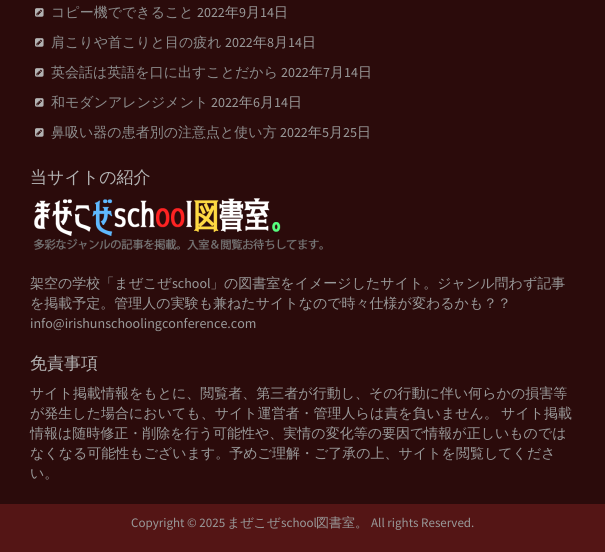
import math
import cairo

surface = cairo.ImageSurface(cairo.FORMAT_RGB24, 605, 552)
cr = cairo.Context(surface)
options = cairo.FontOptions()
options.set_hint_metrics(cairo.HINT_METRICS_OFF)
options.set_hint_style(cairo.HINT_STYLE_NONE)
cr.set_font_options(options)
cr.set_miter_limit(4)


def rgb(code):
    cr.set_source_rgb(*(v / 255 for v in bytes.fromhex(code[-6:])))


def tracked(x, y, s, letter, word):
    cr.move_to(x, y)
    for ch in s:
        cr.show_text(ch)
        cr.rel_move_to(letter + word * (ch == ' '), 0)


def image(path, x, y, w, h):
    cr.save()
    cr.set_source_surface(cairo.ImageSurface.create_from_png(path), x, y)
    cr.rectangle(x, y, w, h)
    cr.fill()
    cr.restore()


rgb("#541515")
cr.paint()
rgb("#2b0b0b")
cr.rectangle(0, 0, 605, 504)
cr.fill()
image("img/1.png", 35, 8, 9, 9)
image("img/1.png", 35, 38, 9, 9)
image("img/1.png", 35, 68, 9, 9)
image("img/1.png", 35, 98, 9, 9)
image("img/1.png", 35, 128, 9, 9)
image("img/2.png", 33, 198, 290, 52)
cr.select_font_face("WenQuanYi Zen Hei Medium")
cr.set_font_size(14)
rgb("#8c8c8c")
cr.move_to(51, 17)
cr.show_text("コピー機でできること")
cr.select_font_face("Source Sans Pro")
rgb("#999999")
cr.move_to(197, 17)
cr.show_text("2022")
cr.select_font_face("WenQuanYi Zen Hei Medium")
cr.move_to(225, 17)
cr.show_text("年")
cr.select_font_face("Source Sans Pro")
cr.move_to(239, 17)
cr.show_text("9")
cr.select_font_face("WenQuanYi Zen Hei Medium")
cr.move_to(246, 17)
cr.show_text("月")
cr.select_font_face("Source Sans Pro")
cr.move_to(260, 17)
cr.show_text("14")
cr.select_font_face("WenQuanYi Zen Hei Medium")
cr.move_to(274, 17)
cr.show_text("日")
rgb("#8c8c8c")
cr.move_to(51, 47)
cr.show_text("肩こりや首こりと目の疲れ")
cr.select_font_face("Source Sans Pro")
rgb("#999999")
cr.move_to(225, 47)
cr.show_text("2022")
cr.select_font_face("WenQuanYi Zen Hei Medium")
cr.move_to(253, 47)
cr.show_text("年")
cr.select_font_face("Source Sans Pro")
cr.move_to(267, 47)
cr.show_text("8")
cr.select_font_face("WenQuanYi Zen Hei Medium")
cr.move_to(274, 47)
cr.show_text("月")
cr.select_font_face("Source Sans Pro")
cr.move_to(288, 47)
cr.show_text("14")
cr.select_font_face("WenQuanYi Zen Hei Medium")
cr.move_to(302, 47)
cr.show_text("日")
rgb("#8c8c8c")
cr.move_to(51, 77)
cr.show_text("英会話は英語を口に出すことだから")
cr.select_font_face("Source Sans Pro")
rgb("#999999")
cr.move_to(281, 77)
cr.show_text("2022")
cr.select_font_face("WenQuanYi Zen Hei Medium")
cr.move_to(309, 77)
cr.show_text("年")
cr.select_font_face("Source Sans Pro")
cr.move_to(323, 77)
cr.show_text("7")
cr.select_font_face("WenQuanYi Zen Hei Medium")
cr.move_to(330, 77)
cr.show_text("月")
cr.select_font_face("Source Sans Pro")
cr.move_to(344, 77)
cr.show_text("14")
cr.select_font_face("WenQuanYi Zen Hei Medium")
cr.move_to(358, 77)
cr.show_text("日")
rgb("#8c8c8c")
cr.move_to(51, 107)
cr.show_text("和モダンアレンジメント")
cr.select_font_face("Source Sans Pro")
rgb("#999999")
cr.move_to(211, 107)
cr.show_text("2022")
cr.select_font_face("WenQuanYi Zen Hei Medium")
cr.move_to(239, 107)
cr.show_text("年")
cr.select_font_face("Source Sans Pro")
cr.move_to(253, 107)
cr.show_text("6")
cr.select_font_face("WenQuanYi Zen Hei Medium")
cr.move_to(260, 107)
cr.show_text("月")
cr.select_font_face("Source Sans Pro")
cr.move_to(274, 107)
cr.show_text("14")
cr.select_font_face("WenQuanYi Zen Hei Medium")
cr.move_to(288, 107)
cr.show_text("日")
rgb("#8c8c8c")
cr.move_to(51, 137)
cr.show_text("鼻吸い器の患者別の注意点と使い方")
cr.select_font_face("Source Sans Pro")
rgb("#999999")
cr.move_to(280, 137)
cr.show_text("2022")
cr.select_font_face("WenQuanYi Zen Hei Medium")
cr.move_to(308, 137)
cr.show_text("年")
cr.select_font_face("Source Sans Pro")
cr.move_to(322, 137)
cr.show_text("5")
cr.select_font_face("WenQuanYi Zen Hei Medium")
cr.move_to(329, 137)
cr.show_text("月")
cr.select_font_face("Source Sans Pro")
cr.move_to(343, 137)
cr.show_text("25")
cr.select_font_face("WenQuanYi Zen Hei Medium")
cr.move_to(357, 137)
cr.show_text("日")
cr.set_font_size(17)
rgb("#b3b3b3")
cr.move_to(30, 183)
cr.show_text("当サイトの紹介")
cr.set_font_size(14)
rgb("#999999")
cr.move_to(30, 288)
cr.show_text("架空の学校「まぜこぜ")
cr.select_font_face("Source Sans Pro")
cr.move_to(172, 288)
cr.show_text("school")
cr.select_font_face("WenQuanYi Zen Hei Medium")
cr.move_to(210, 288)
cr.show_text("」の図書室をイメージしたサイト。ジャンル問わず記事")
cr.move_to(30, 308)
cr.show_text("を掲載予定。管理人の実験も兼ねたサイトなので時々仕様が変わるかも？？")
cr.select_font_face("Source Sans Pro")
cr.move_to(30, 328)
cr.show_text("info@irishunschoolingconference.com")
cr.select_font_face("WenQuanYi Zen Hei Medium")
cr.set_font_size(17)
rgb("#b3b3b3")
cr.move_to(30, 369)
cr.show_text("免責事項")
cr.set_font_size(14)
rgb("#999999")
cr.move_to(30, 398)
cr.show_text("サイト掲載情報をもとに、閲覧者、第三者が行動し、その行動に伴い何らかの損害等")
tracked(30, 418, "が発生した場合においても、サイト運営者・管理人らは責を負いません。 サイト掲載", 0, -1)
for x, y, s in [
    (30, 438, "情報は随時修正・削除を行う可能性や、実情の変化等の要因で情報が正しいものでは"),
    (30, 458, "なくなる可能性もございます。予めご理解・ご了承の上、サイトを閲覧してくださ"),
    (30, 478, "い。"),
]:
    cr.move_to(x, y)
    cr.show_text(s)
cr.select_font_face("Source Sans Pro")
cr.set_font_size(13)
cr.move_to(131, 527)
cr.show_text("Copyright © 2025")
cr.select_font_face("WenQuanYi Zen Hei Medium")
cr.move_to(227, 527)
cr.show_text("まぜこぜ")
cr.select_font_face("Source Sans Pro")
cr.move_to(281, 527)
cr.show_text("school")
cr.select_font_face("WenQuanYi Zen Hei Medium")
cr.move_to(316, 527)
cr.show_text("図書室。")
cr.select_font_face("Source Sans Pro")
cr.move_to(371, 527)
cr.show_text("All rights Reserved.")
surface.write_to_png("page.png")
